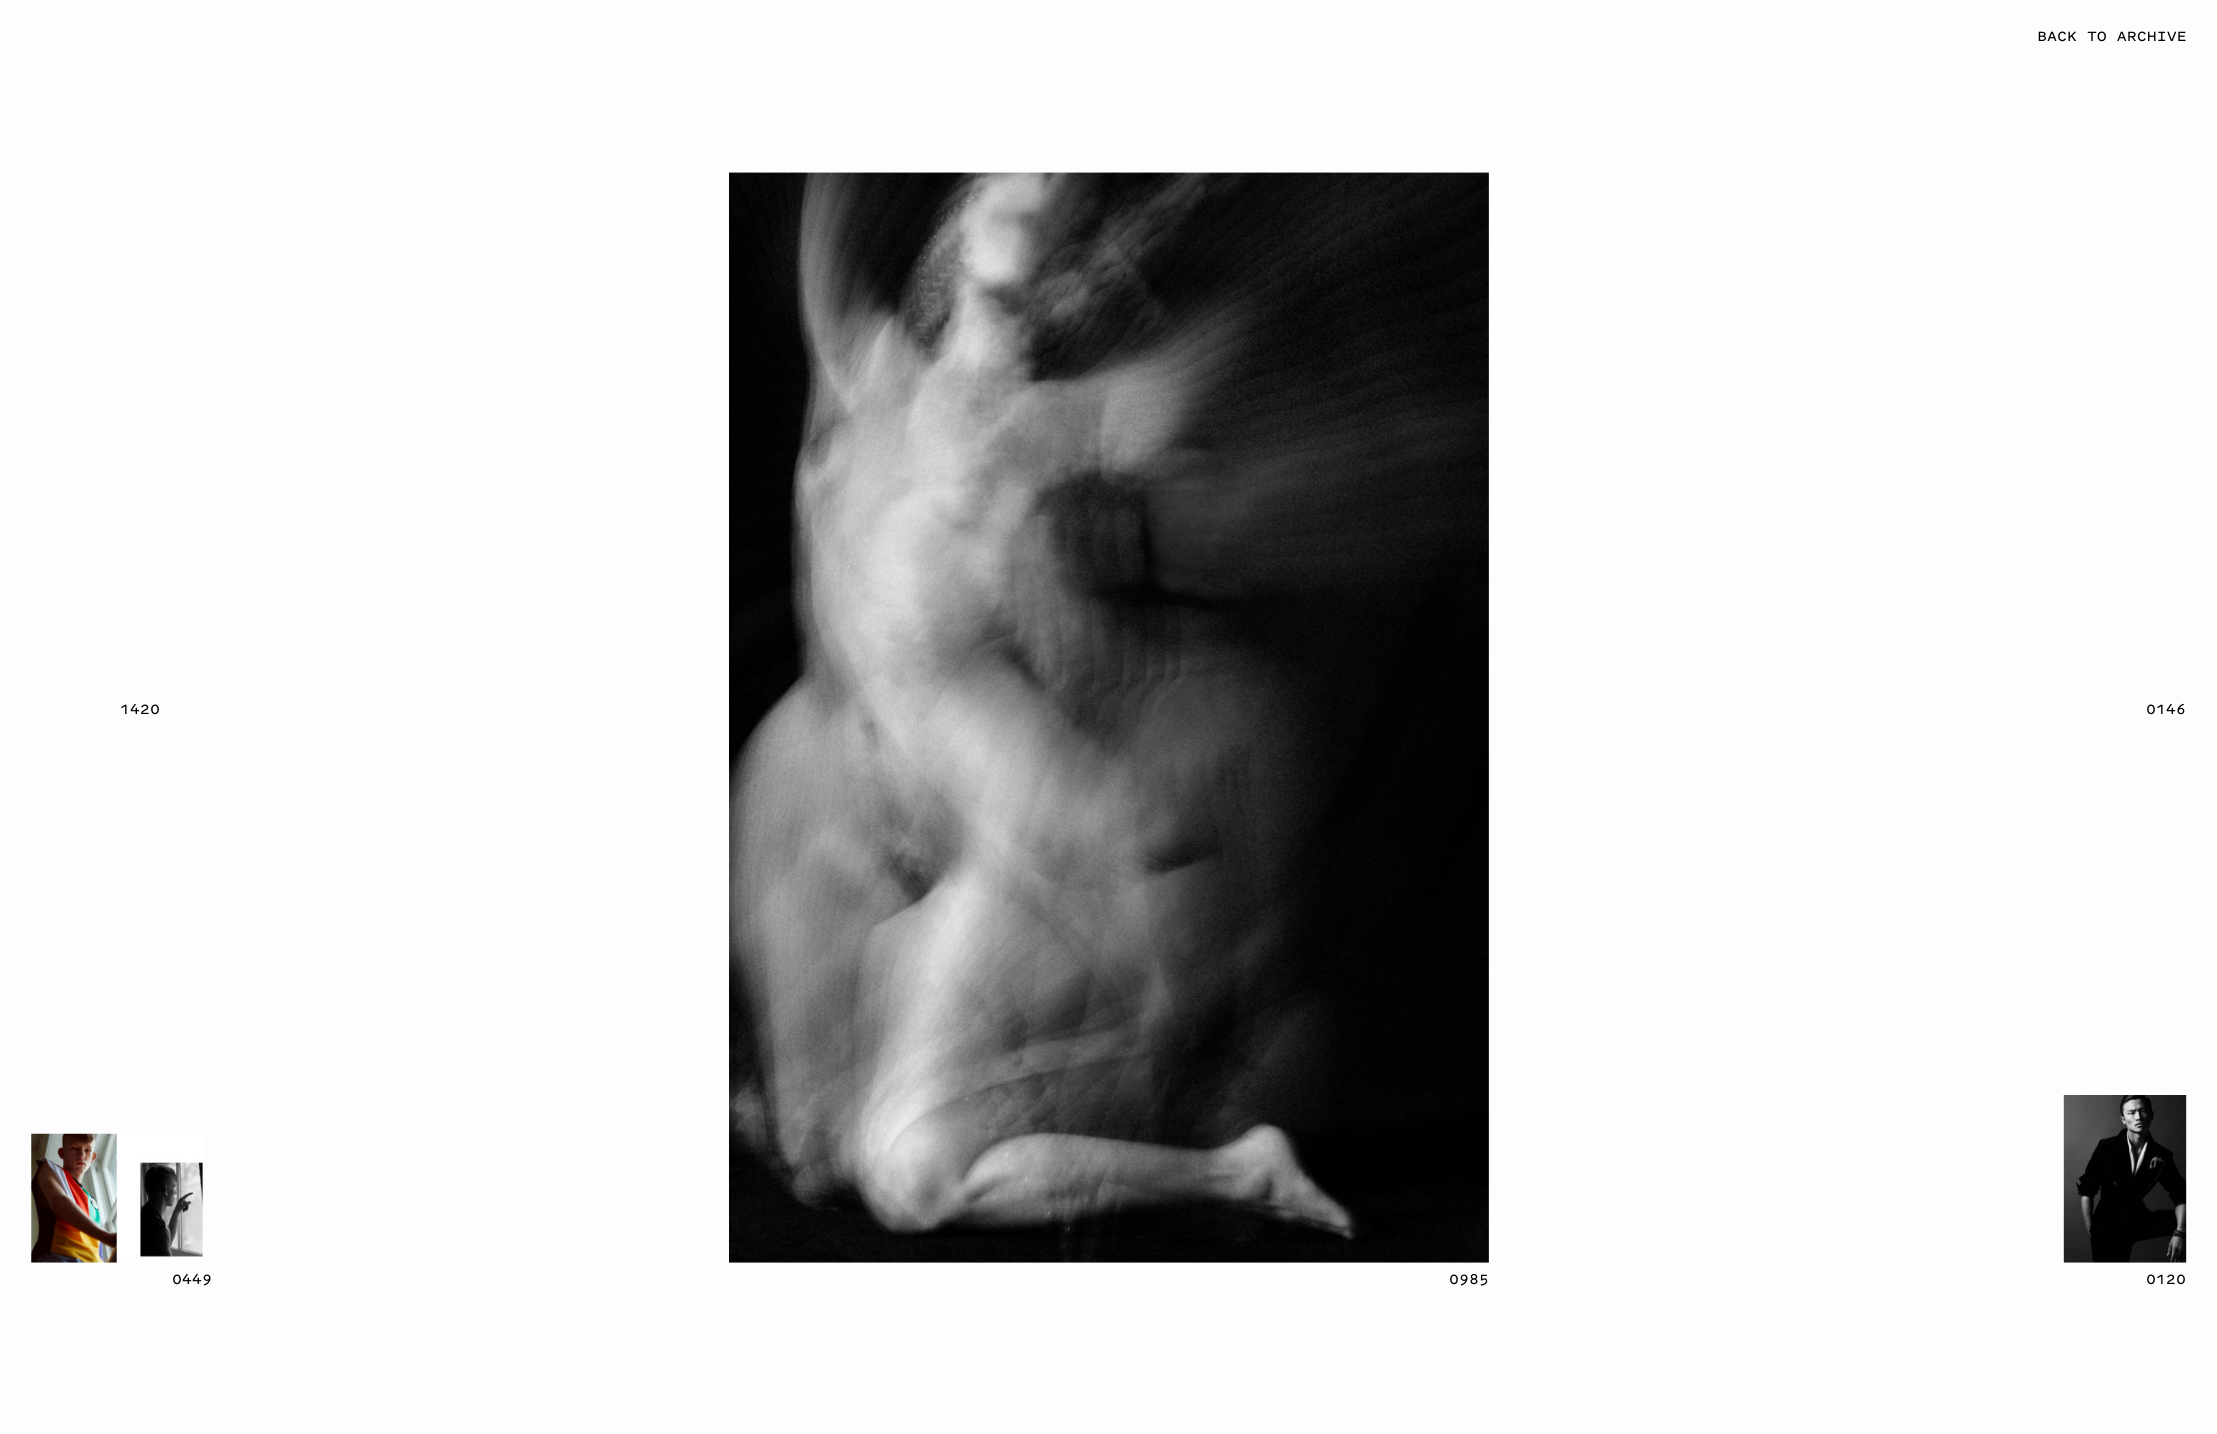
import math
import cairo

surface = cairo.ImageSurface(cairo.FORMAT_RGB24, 2217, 1434)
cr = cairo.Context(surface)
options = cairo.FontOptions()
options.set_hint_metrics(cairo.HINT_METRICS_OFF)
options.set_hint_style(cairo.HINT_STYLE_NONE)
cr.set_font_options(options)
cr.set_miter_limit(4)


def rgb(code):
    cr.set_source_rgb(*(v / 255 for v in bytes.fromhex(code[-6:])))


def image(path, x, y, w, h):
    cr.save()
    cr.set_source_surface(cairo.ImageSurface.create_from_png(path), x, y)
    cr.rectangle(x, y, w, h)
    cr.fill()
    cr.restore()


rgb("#fdfdfd")
cr.paint()
image("img/1.png", 31, 1133, 172, 130)
image("img/2.png", 729, 172, 760, 1091)
image("img/3.png", 2063, 1095, 124, 168)
cr.select_font_face("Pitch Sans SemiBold")
cr.set_font_size(16.25)
rgb("#000000")
for x, y, s in [
    (2037, 41, "BACK TO ARCHIVE"),
    (120, 714, "1420"),
    (2146, 714, "0146"),
    (172, 1284, "0449"),
    (1449, 1284, "0985"),
    (2146, 1284, "0120"),
]:
    cr.move_to(x, y)
    cr.show_text(s)
surface.write_to_png("page.png")
